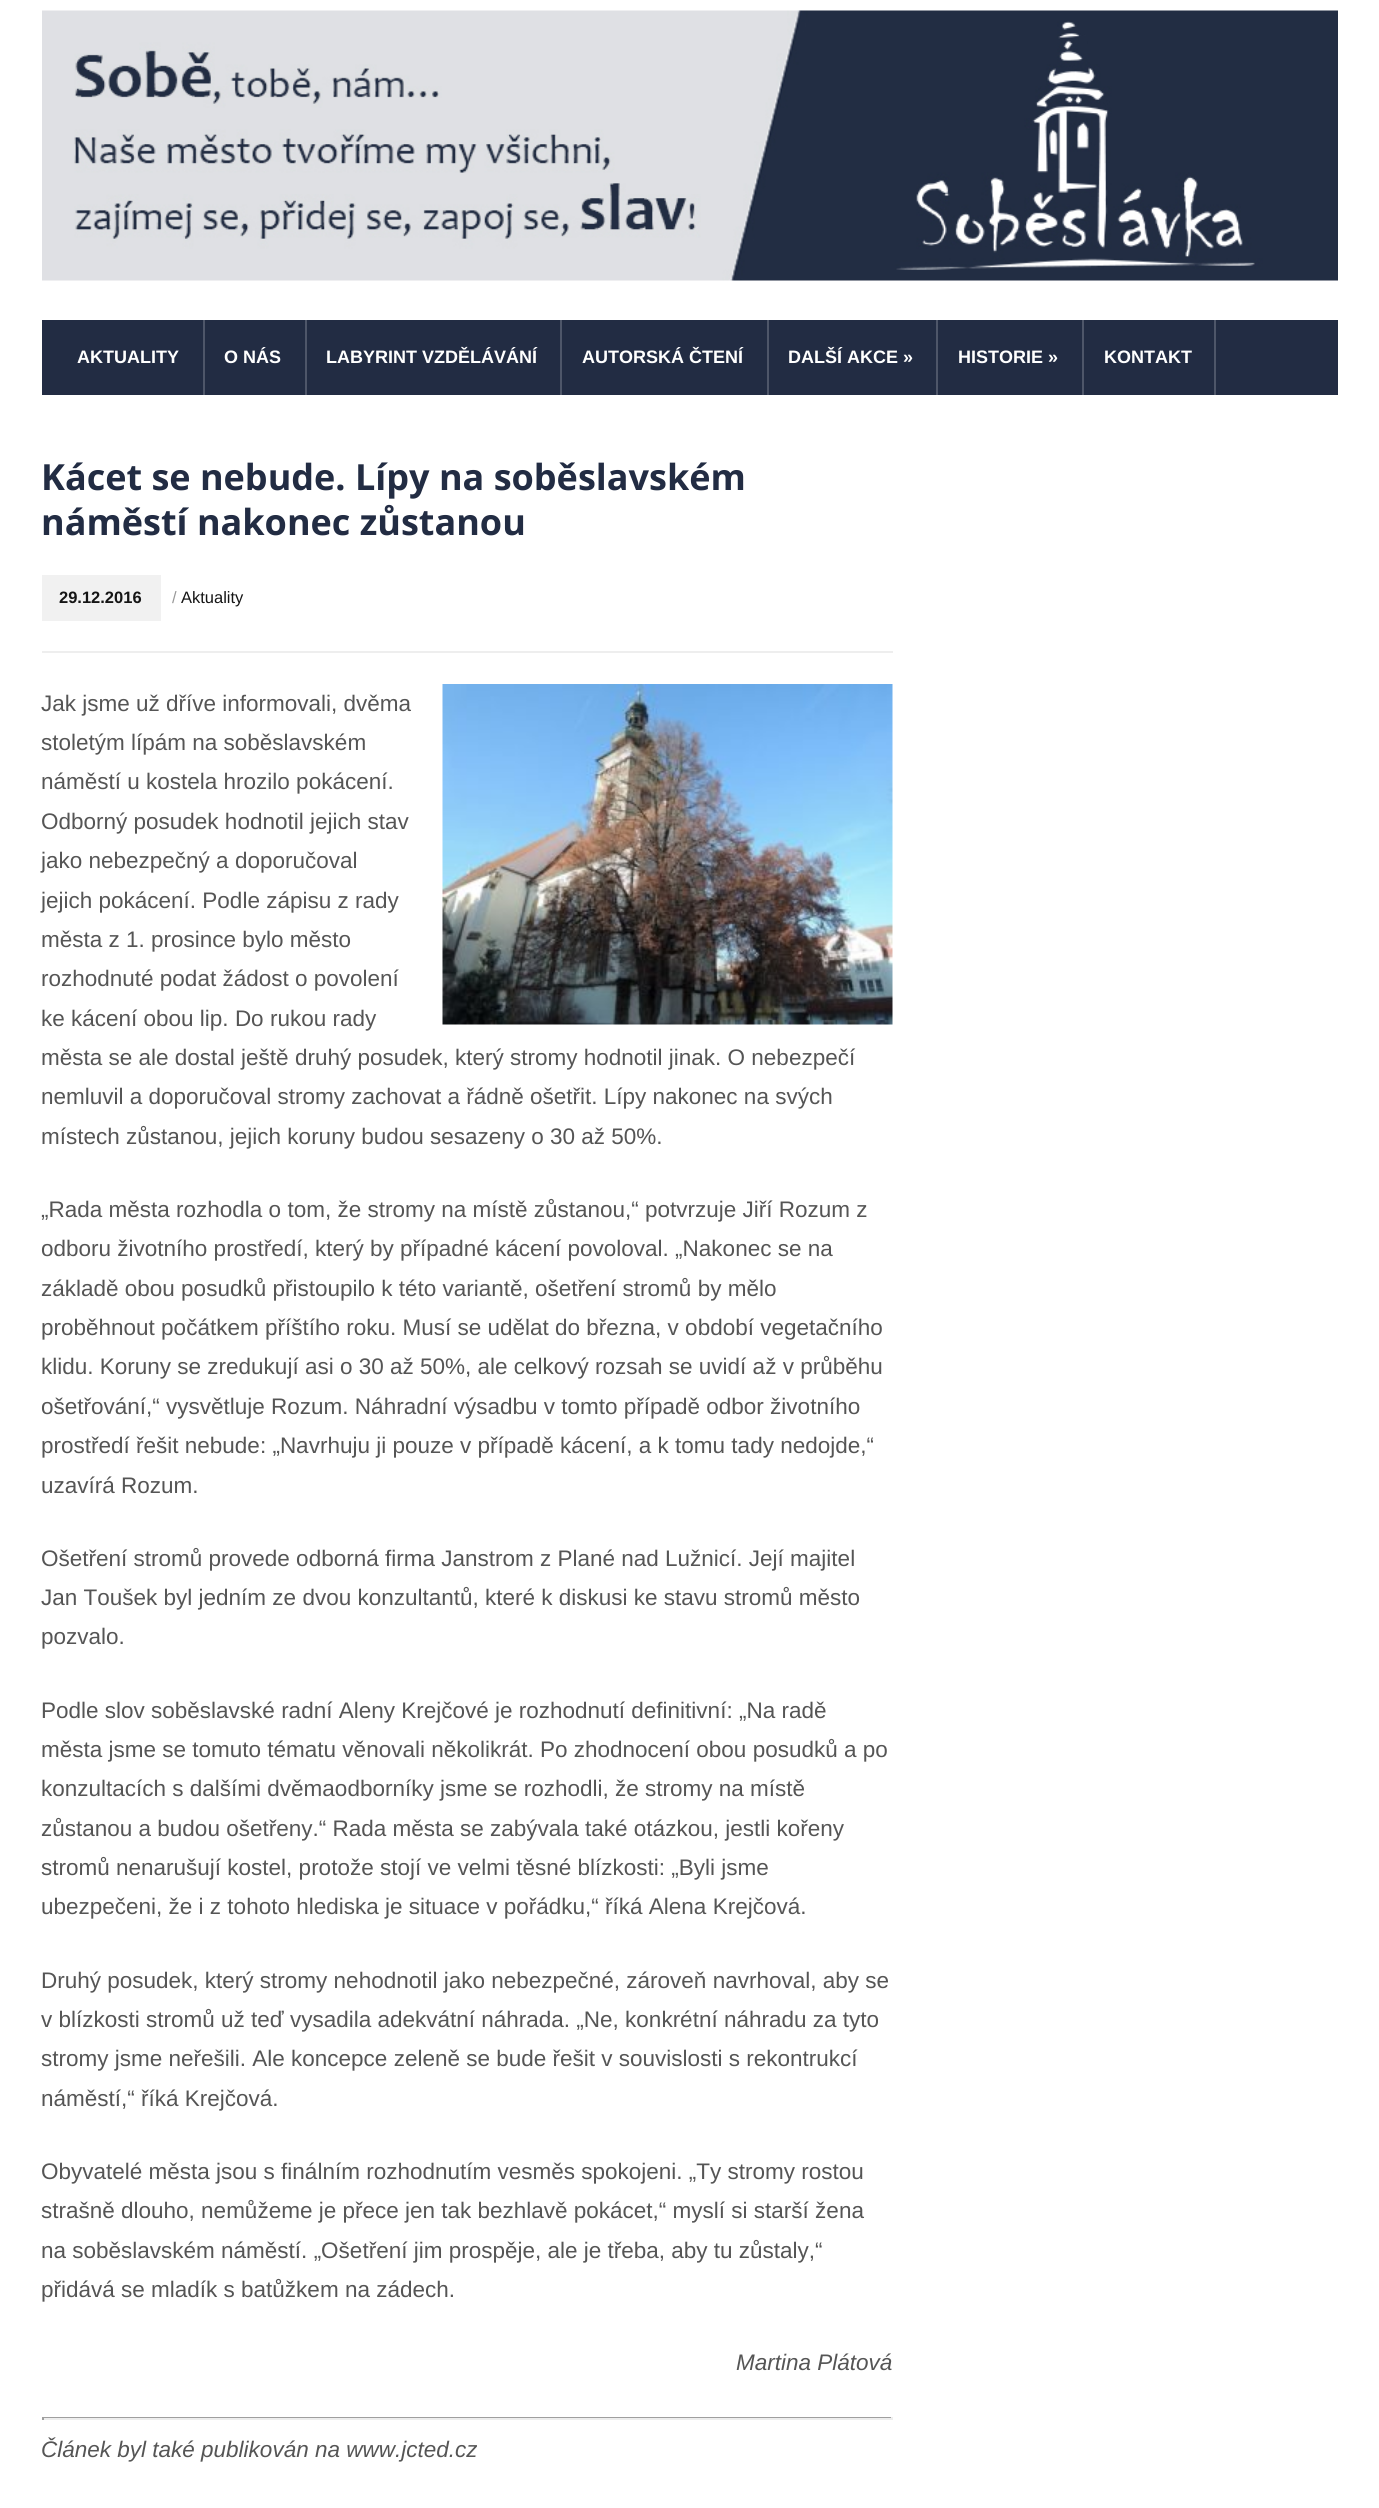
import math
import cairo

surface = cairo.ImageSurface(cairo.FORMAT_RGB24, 1379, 2508)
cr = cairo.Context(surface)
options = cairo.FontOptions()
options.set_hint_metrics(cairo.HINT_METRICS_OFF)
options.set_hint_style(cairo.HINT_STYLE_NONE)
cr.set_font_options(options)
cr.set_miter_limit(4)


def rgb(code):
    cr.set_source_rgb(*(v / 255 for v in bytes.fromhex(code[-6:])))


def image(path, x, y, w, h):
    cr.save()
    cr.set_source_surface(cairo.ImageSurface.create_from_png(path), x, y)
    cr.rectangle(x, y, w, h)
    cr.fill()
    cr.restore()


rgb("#ffffff")
cr.paint()
image("img/1.png", 42, 10, 1296, 271)
for x, y, w, h, color in [
    (42, 320, 1296, 75, "#222c43"),
    (203, 320, 2, 75, "#4e5669"),
    (305, 320, 2, 75, "#4e5669"),
    (560, 320, 2, 75, "#4e5669"),
    (767, 320, 2, 75, "#4e5669"),
    (936, 320, 2, 75, "#4e5669"),
    (1082, 320, 2, 75, "#4e5669"),
    (1214, 320, 2, 75, "#4e5669"),
    (42, 575, 119, 46, "#f1f1f1"),
    (42, 651, 851, 2, "#eeeeee"),
]:
    rgb(color)
    cr.rectangle(x, y, w, h)
    cr.fill()
image("img/2.png", 442, 684, 451, 341)
for x, y, w, h, color in [
    (42, 2417, 851, 1, "#9f9f9f"),
    (891, 2417, 2, 3, "#eeeeee"),
    (42, 2418, 851, 2, "#eeeeee"),
    (42, 2417, 2, 3, "#9f9f9f"),
]:
    rgb(color)
    cr.rectangle(x, y, w, h)
    cr.fill()
cr.select_font_face("Liberation Sans", cairo.FONT_SLANT_NORMAL, cairo.FONT_WEIGHT_BOLD)
cr.set_font_size(18)
rgb("#ffffff")
for x, y, s in [
    (77, 363, "AKTUALITY"),
    (224, 363, "O NÁS"),
    (326, 363, "LABYRINT VZDĚLÁVÁNÍ"),
    (582, 363, "AUTORSKÁ ČTENÍ"),
    (788, 363, "DALŠÍ AKCE »"),
    (958, 363, "HISTORIE »"),
    (1104, 363, "KONTAKT"),
]:
    cr.move_to(x, y)
    cr.show_text(s)
cr.select_font_face("Open Sans", cairo.FONT_SLANT_NORMAL, cairo.FONT_WEIGHT_BOLD)
cr.set_font_size(36)
rgb("#222c43")
cr.move_to(41, 490)
cr.show_text("Kácet se nebude. Lípy na soběslavském")
cr.move_to(41, 535)
cr.show_text("náměstí nakonec zůstanou")
cr.select_font_face("Liberation Sans", cairo.FONT_SLANT_NORMAL, cairo.FONT_WEIGHT_BOLD)
cr.set_font_size(16.5)
rgb("#151515")
cr.move_to(59, 603)
cr.show_text("29.12.2016")
cr.select_font_face("Liberation Sans")
rgb("#999999")
cr.move_to(172, 603)
cr.show_text("/")
rgb("#151515")
cr.move_to(181, 603)
cr.show_text("Aktuality")
cr.set_font_size(22.5)
rgb("#555555")
for x, y, s in [
    (41, 711, "Jak jsme už dříve informovali, dvěma"),
    (41, 750, "stoletým lípám na soběslavském"),
    (41, 789, "náměstí u kostela hrozilo pokácení."),
    (41, 829, "Odborný posudek hodnotil jejich stav"),
    (41, 868, "jako nebezpečný a doporučoval"),
    (41, 908, "jejich pokácení. Podle zápisu z rady"),
    (41, 947, "města z 1. prosince bylo město"),
    (41, 986, "rozhodnuté podat žádost o povolení"),
    (41, 1026, "ke kácení obou lip. Do rukou rady"),
    (41, 1065, "města se ale dostal ještě druhý posudek, který stromy hodnotil jinak. O nebezpečí"),
    (41, 1104, "nemluvil a doporučoval stromy zachovat a řádně ošetřit. Lípy nakonec na svých"),
    (41, 1144, "místech zůstanou, jejich koruny budou sesazeny o 30 až 50%."),
    (41, 1217, "„Rada města rozhodla o tom, že stromy na místě zůstanou,“ potvrzuje Jiří Rozum z"),
    (41, 1256, "odboru životního prostředí, který by případné kácení povoloval. „Nakonec se na"),
    (41, 1296, "základě obou posudků přistoupilo k této variantě, ošetření stromů by mělo"),
    (41, 1335, "proběhnout počátkem příštího roku. Musí se udělat do března, v období vegetačního"),
    (41, 1374, "klidu. Koruny se zredukují asi o 30 až 50%, ale celkový rozsah se uvidí až v průběhu"),
    (41, 1414, "ošetřování,“ vysvětluje Rozum. Náhradní výsadbu v tomto případě odbor životního"),
    (41, 1453, "prostředí řešit nebude: „Navrhuju ji pouze v případě kácení, a k tomu tady nedojde,“"),
    (41, 1493, "uzavírá Rozum."),
    (41, 1566, "Ošetření stromů provede odborná firma Janstrom z Plané nad Lužnicí. Její majitel"),
    (41, 1605, "Jan Toušek byl jedním ze dvou konzultantů, které k diskusi ke stavu stromů město"),
    (41, 1644, "pozvalo."),
    (41, 1718, "Podle slov soběslavské radní Aleny Krejčové je rozhodnutí definitivní: „Na radě"),
    (41, 1757, "města jsme se tomuto tématu věnovali několikrát. Po zhodnocení obou posudků a po"),
    (41, 1796, "konzultacích s dalšími dvěmaodborníky jsme se rozhodli, že stromy na místě"),
    (41, 1836, "zůstanou a budou ošetřeny.“ Rada města se zabývala také otázkou, jestli kořeny"),
    (41, 1875, "stromů nenarušují kostel, protože stojí ve velmi těsné blízkosti: „Byli jsme"),
    (41, 1914, "ubezpečeni, že i z tohoto hlediska je situace v pořádku,“ říká Alena Krejčová."),
    (41, 1988, "Druhý posudek, který stromy nehodnotil jako nebezpečné, zároveň navrhoval, aby se"),
    (41, 2027, "v blízkosti stromů už teď vysadila adekvátní náhrada. „Ne, konkrétní náhradu za tyto"),
    (41, 2066, "stromy jsme neřešili. Ale koncepce zeleně se bude řešit v souvislosti s rekontrukcí"),
    (41, 2106, "náměstí,“ říká Krejčová."),
    (41, 2179, "Obyvatelé města jsou s finálním rozhodnutím vesměs spokojeni. „Ty stromy rostou"),
    (41, 2218, "strašně dlouho, nemůžeme je přece jen tak bezhlavě pokácet,“ myslí si starší žena"),
    (41, 2258, "na soběslavském náměstí. „Ošetření jim prospěje, ale je třeba, aby tu zůstaly,“"),
    (41, 2297, "přidává se mladík s batůžkem na zádech."),
]:
    cr.move_to(x, y)
    cr.show_text(s)
cr.select_font_face("Liberation Sans", cairo.FONT_SLANT_ITALIC)
cr.move_to(736, 2370)
cr.show_text("Martina Plátová")
cr.move_to(41, 2457)
cr.show_text("Článek byl také publikován na www.jcted.cz")
surface.write_to_png("page.png")
